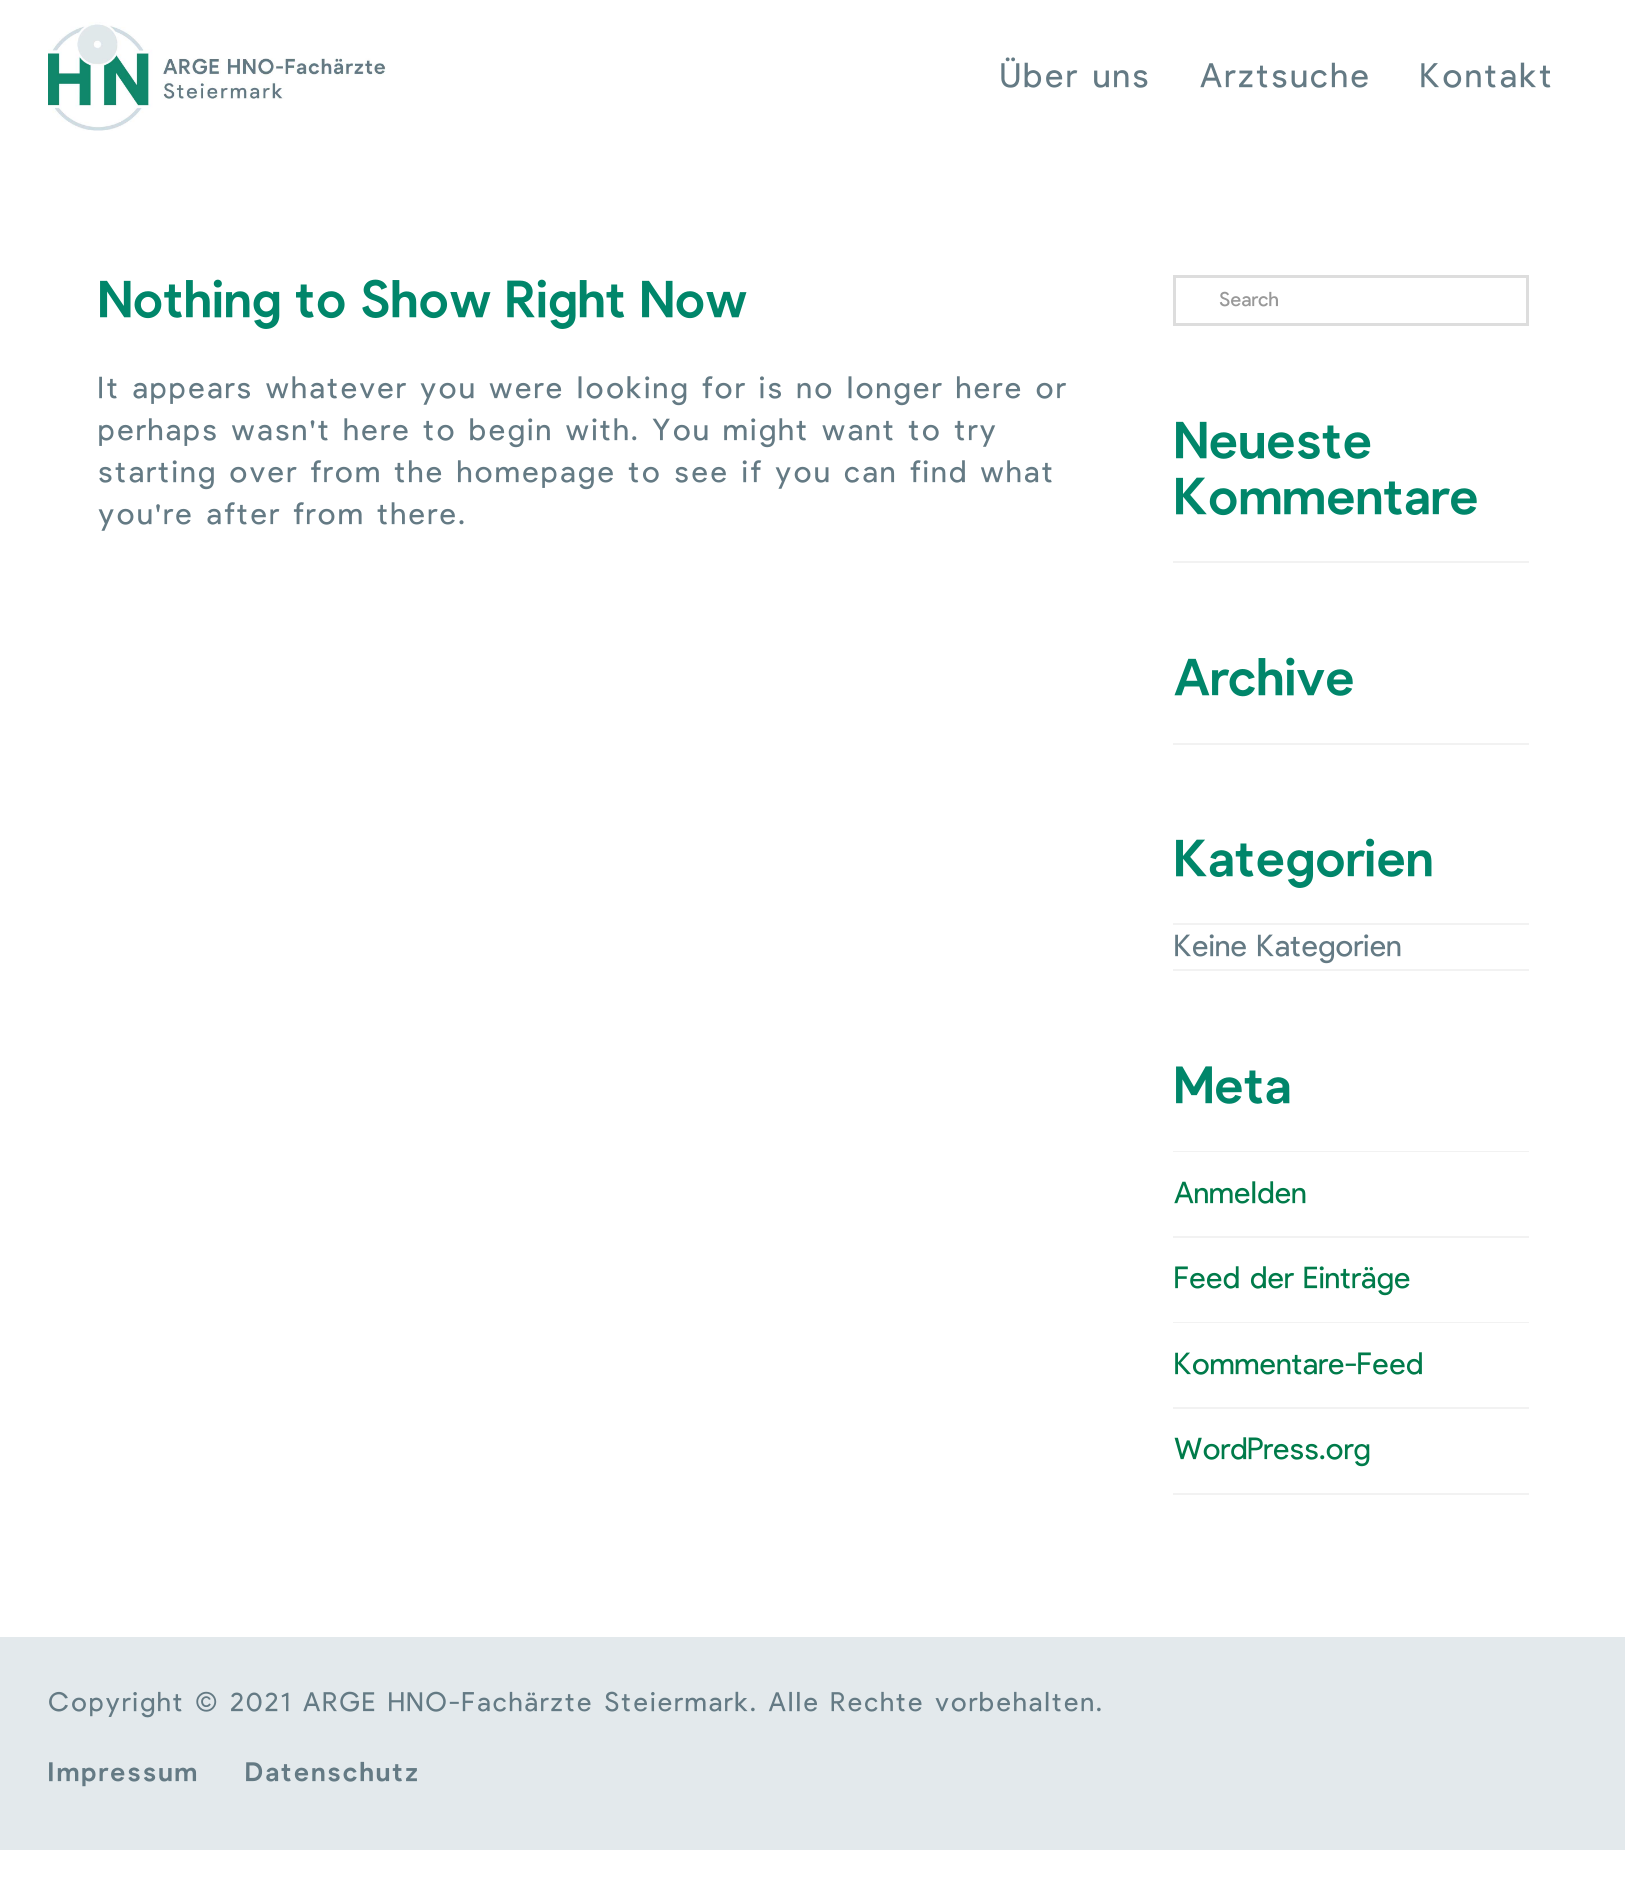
import math
import cairo

surface = cairo.ImageSurface(cairo.FORMAT_RGB24, 1625, 1879)
cr = cairo.Context(surface)
options = cairo.FontOptions()
options.set_hint_metrics(cairo.HINT_METRICS_OFF)
options.set_hint_style(cairo.HINT_STYLE_NONE)
cr.set_font_options(options)
cr.set_miter_limit(4)


def rgb(code):
    cr.set_source_rgb(*(v / 255 for v in bytes.fromhex(code[-6:])))


def tracked(x, y, s, letter, word):
    cr.move_to(x, y)
    for ch in s:
        cr.show_text(ch)
        cr.rel_move_to(letter + word * (ch == ' '), 0)


def image(path, x, y, w, h):
    cr.save()
    cr.set_source_surface(cairo.ImageSurface.create_from_png(path), x, y)
    cr.rectangle(x, y, w, h)
    cr.fill()
    cr.restore()


rgb("#ffffff")
cr.paint()
image("img/1.png", 48, 22, 338, 109)
cr.rectangle(1174.5, 276.5, 353, 48)
rgb("#dddddd")
cr.set_line_width(3)
cr.stroke()
for x, y, w, h, color in [
    (1173, 561, 356, 2, "#f2f2f2"),
    (1173, 743, 356, 2, "#f2f2f2"),
    (1173, 969, 356, 2, "#f2f2f2"),
    (1173, 923, 356, 2, "#f2f2f2"),
    (1173, 1151, 356, 1, "#f2f2f2"),
    (1173, 1236, 356, 2, "#f2f2f2"),
    (1173, 1322, 356, 1, "#f2f2f2"),
    (1173, 1407, 356, 2, "#f2f2f2"),
    (1173, 1493, 356, 2, "#f2f2f2"),
    (0, 1637, 1625, 213, "#e3e9ec"),
]:
    rgb(color)
    cr.rectangle(x, y, w, h)
    cr.fill()
cr.select_font_face("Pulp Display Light")
cr.set_font_size(33.5)
rgb("#647a84")
for x, y, s in [
    (1000, 87, "Über uns"),
    (1200, 87, "Arztsuche"),
    (1420, 87, "Kontakt"),
]:
    tracked(x, y, s, 2.5, 0)
cr.select_font_face("Pulp Display SemiBold")
cr.set_font_size(51)
rgb("#00866a")
cr.move_to(98, 317)
cr.show_text("Nothing to Show Right Now")
cr.select_font_face("Pulp Display Light")
cr.set_font_size(30)
rgb("#647a84")
for x, y, s in [
    (98, 398, "It appears whatever you were looking for is no longer here or"),
    (98, 440, "perhaps wasn't here to begin with. You might want to try"),
    (98, 482, "starting over from the homepage to see if you can find what"),
    (98, 524, "you're after from there."),
]:
    tracked(x, y, s, 2.25, 0)
cr.select_font_face("Pulp Display")
cr.set_font_size(19.5)
rgb("#999999")
cr.move_to(1219, 306)
cr.show_text("Search")
cr.select_font_face("Pulp Display SemiBold")
cr.set_font_size(51)
rgb("#00866a")
for x, y, s in [
    (1174, 458, "Neueste"),
    (1174, 514, "Kommentare"),
    (1174, 695, "Archive"),
    (1174, 876, "Kategorien"),
]:
    cr.move_to(x, y)
    cr.show_text(s)
cr.select_font_face("Pulp Display Light")
cr.set_font_size(30)
rgb("#647a84")
cr.move_to(1174, 956)
cr.show_text("Keine Kategorien")
cr.select_font_face("Pulp Display SemiBold")
cr.set_font_size(51)
rgb("#00866a")
cr.move_to(1174, 1103)
cr.show_text("Meta")
cr.select_font_face("Pulp Display Light")
cr.set_font_size(30)
rgb("#007b4a")
for x, y, s in [
    (1174, 1203, "Anmelden"),
    (1174, 1288, "Feed der Einträge"),
    (1174, 1374, "Kommentare-Feed"),
    (1174, 1459, "WordPress.org"),
]:
    cr.move_to(x, y)
    cr.show_text(s)
cr.set_font_size(26.4)
rgb("#647a84")
tracked(48, 1711, "Copyright © 2021 ARGE HNO-Fachärzte Steiermark. Alle Rechte vorbehalten.", 1.98, 0)
cr.select_font_face("Pulp Display SemiBold")
tracked(48, 1781, "Impressum", 1.98, 0)
tracked(245, 1781, "Datenschutz", 1.98, 0)
surface.write_to_png("page.png")
